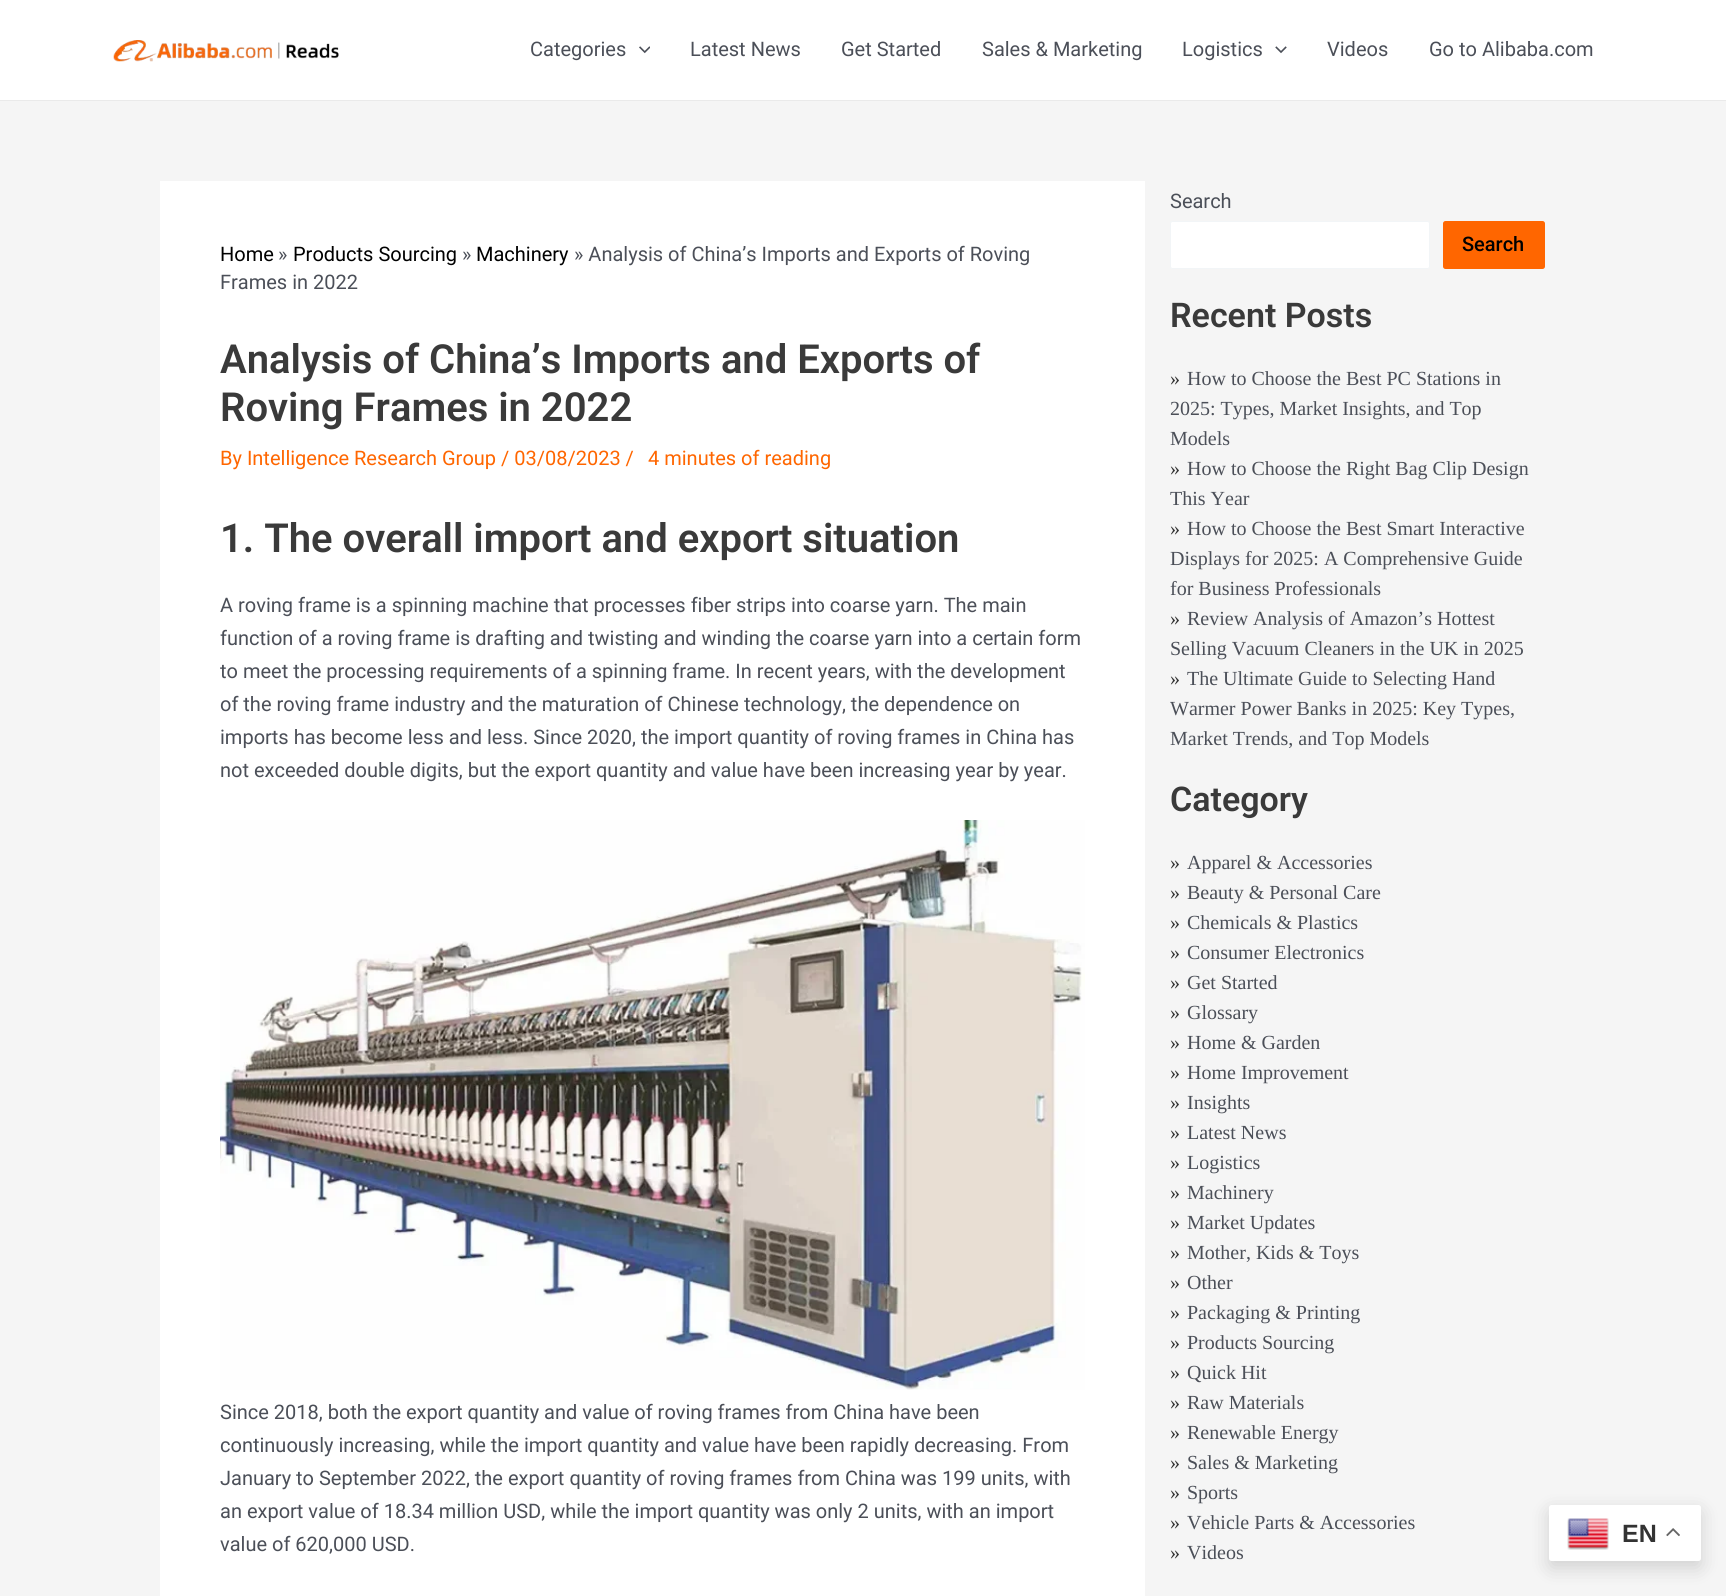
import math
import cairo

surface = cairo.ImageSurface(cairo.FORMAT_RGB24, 1726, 1596)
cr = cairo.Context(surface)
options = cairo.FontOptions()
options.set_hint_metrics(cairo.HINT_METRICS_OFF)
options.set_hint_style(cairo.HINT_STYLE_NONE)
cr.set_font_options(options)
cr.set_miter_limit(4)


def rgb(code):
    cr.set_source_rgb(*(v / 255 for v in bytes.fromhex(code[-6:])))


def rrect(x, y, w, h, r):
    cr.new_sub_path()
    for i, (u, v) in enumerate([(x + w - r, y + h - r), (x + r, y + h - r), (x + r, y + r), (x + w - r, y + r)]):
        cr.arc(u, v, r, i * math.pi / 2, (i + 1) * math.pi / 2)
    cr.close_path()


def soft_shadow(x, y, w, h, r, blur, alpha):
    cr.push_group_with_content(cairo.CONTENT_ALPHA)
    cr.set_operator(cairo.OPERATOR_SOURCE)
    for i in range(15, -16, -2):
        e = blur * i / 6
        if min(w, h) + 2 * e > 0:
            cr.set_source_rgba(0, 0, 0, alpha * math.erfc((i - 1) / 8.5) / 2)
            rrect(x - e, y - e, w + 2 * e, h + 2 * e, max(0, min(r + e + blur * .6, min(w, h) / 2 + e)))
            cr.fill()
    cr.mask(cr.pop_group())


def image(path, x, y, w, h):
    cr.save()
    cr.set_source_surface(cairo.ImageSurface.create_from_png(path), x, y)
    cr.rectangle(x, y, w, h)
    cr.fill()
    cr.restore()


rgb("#f5f5f5")
cr.paint()
rgb("#ffffff")
cr.rectangle(0, 0, 1726, 100)
cr.fill()
rgb("#eaeaea")
cr.rectangle(0, 100, 1726, 1)
cr.fill()
image("img/1.png", 113, 40, 226, 22)
image("img/2.png", 639, 46, 11, 8)
image("img/3.png", 1275, 46, 12, 8)
rgb("#ffffff")
cr.rectangle(160, 181, 985, 1415)
cr.fill()
image("img/4.png", 220, 820, 865, 570)
rrect(1170.5, 221.5, 259, 47, 2)
cr.fill_preserve()
rgb("#f2f5f7")
cr.set_line_width(1)
cr.stroke()
rgb("#ff6600")
rrect(1443, 221, 102, 48, 2.5)
cr.fill()
rgb("#000000")
soft_shadow(1549, 1511, 152, 57, 2.5, 9.5, 0.15)
rgb("#ffffff")
rrect(1549, 1505, 152, 56, 2.5)
cr.fill()
image("img/5.png", 1567, 1518, 42, 32)
image("img/6.png", 1666, 1528, 14, 9)
cr.select_font_face("Roboto")
cr.set_font_size(20)
rgb("#4b4f58")
for x, y, s in [
    (530, 56, "Categories"),
    (690, 56, "Latest News"),
    (841, 56, "Get Started"),
    (982, 56, "Sales & Marketing"),
    (1182, 56, "Logistics"),
    (1327, 56, "Videos"),
    (1429, 56, "Go to Alibaba.com"),
]:
    cr.move_to(x, y)
    cr.show_text(s)
rgb("#000000")
cr.move_to(220, 261)
cr.show_text("Home")
rgb("#4b4f58")
cr.move_to(278, 261)
cr.show_text("»")
rgb("#000000")
cr.move_to(293, 261)
cr.show_text("Products Sourcing")
rgb("#4b4f58")
cr.move_to(462, 261)
cr.show_text("»")
rgb("#000000")
cr.move_to(476, 261)
cr.show_text("Machinery")
rgb("#4b4f58")
cr.move_to(574, 261)
cr.show_text("» Analysis of China’s Imports and Exports of Roving")
cr.move_to(220, 289)
cr.show_text("Frames in 2022")
cr.select_font_face("Roboto SemiBold")
cr.set_font_size(40)
rgb("#3a3a3a")
cr.move_to(220, 373)
cr.show_text("Analysis of China’s Imports and Exports of")
cr.move_to(220, 421)
cr.show_text("Roving Frames in 2022")
cr.select_font_face("Roboto")
cr.set_font_size(20)
rgb("#ff6600")
cr.move_to(220, 465)
cr.show_text("By Intelligence Research Group / 03/08/2023 /")
cr.move_to(648, 465)
cr.show_text("4 minutes of reading")
cr.select_font_face("Roboto SemiBold")
cr.set_font_size(40)
rgb("#3a3a3a")
cr.move_to(220, 552)
cr.show_text("1. The overall import and export situation")
cr.select_font_face("Roboto")
cr.set_font_size(20)
rgb("#4b4f58")
for x, y, s in [
    (220, 612, "A roving frame is a spinning machine that processes fiber strips into coarse yarn. The main"),
    (220, 645, "function of a roving frame is drafting and twisting and winding the coarse yarn into a certain form"),
    (220, 678, "to meet the processing requirements of a spinning frame. In recent years, with the development"),
    (220, 711, "of the roving frame industry and the maturation of Chinese technology, the dependence on"),
    (220, 744, "imports has become less and less. Since 2020, the import quantity of roving frames in China has"),
    (220, 777, "not exceeded double digits, but the export quantity and value have been increasing year by year."),
    (220, 1419, "Since 2018, both the export quantity and value of roving frames from China have been"),
    (220, 1452, "continuously increasing, while the import quantity and value have been rapidly decreasing. From"),
    (220, 1485, "January to September 2022, the export quantity of roving frames from China was 199 units, with"),
    (220, 1518, "an export value of 18.34 million USD, while the import quantity was only 2 units, with an import"),
    (220, 1551, "value of 620,000 USD."),
    (1170, 208, "Search"),
]:
    cr.move_to(x, y)
    cr.show_text(s)
cr.select_font_face("Roboto Medium")
rgb("#000000")
cr.move_to(1462, 251)
cr.show_text("Search")
cr.select_font_face("Roboto SemiBold")
cr.set_font_size(34)
rgb("#3a3a3a")
cr.move_to(1170, 327)
cr.show_text("Recent Posts")
cr.select_font_face("Liberation Serif")
cr.set_font_size(20)
rgb("#333333")
cr.move_to(1170, 385)
cr.show_text("»")
rgb("#4b4f58")
for x, y, s in [
    (1187, 385, "How to Choose the Best PC Stations in"),
    (1170, 415, "2025: Types, Market Insights, and Top"),
    (1170, 445, "Models"),
]:
    cr.move_to(x, y)
    cr.show_text(s)
rgb("#333333")
cr.move_to(1170, 475)
cr.show_text("»")
rgb("#4b4f58")
cr.move_to(1187, 475)
cr.show_text("How to Choose the Right Bag Clip Design")
cr.move_to(1170, 505)
cr.show_text("This Year")
rgb("#333333")
cr.move_to(1170, 535)
cr.show_text("»")
rgb("#4b4f58")
for x, y, s in [
    (1187, 535, "How to Choose the Best Smart Interactive"),
    (1170, 565, "Displays for 2025: A Comprehensive Guide"),
    (1170, 595, "for Business Professionals"),
]:
    cr.move_to(x, y)
    cr.show_text(s)
rgb("#333333")
cr.move_to(1170, 625)
cr.show_text("»")
rgb("#4b4f58")
cr.move_to(1187, 625)
cr.show_text("Review Analysis of Amazon’s Hottest")
cr.move_to(1170, 655)
cr.show_text("Selling Vacuum Cleaners in the UK in 2025")
rgb("#333333")
cr.move_to(1170, 685)
cr.show_text("»")
rgb("#4b4f58")
for x, y, s in [
    (1187, 685, "The Ultimate Guide to Selecting Hand"),
    (1170, 715, "Warmer Power Banks in 2025: Key Types,"),
    (1170, 745, "Market Trends, and Top Models"),
]:
    cr.move_to(x, y)
    cr.show_text(s)
cr.select_font_face("Roboto SemiBold")
cr.set_font_size(34)
rgb("#3a3a3a")
cr.move_to(1170, 811)
cr.show_text("Category")
cr.select_font_face("Liberation Serif")
cr.set_font_size(20)
rgb("#333333")
cr.move_to(1170, 869)
cr.show_text("»")
rgb("#4b4f58")
cr.move_to(1187, 869)
cr.show_text("Apparel & Accessories")
rgb("#333333")
cr.move_to(1170, 899)
cr.show_text("»")
rgb("#4b4f58")
cr.move_to(1187, 899)
cr.show_text("Beauty & Personal Care")
rgb("#333333")
cr.move_to(1170, 929)
cr.show_text("»")
rgb("#4b4f58")
cr.move_to(1187, 929)
cr.show_text("Chemicals & Plastics")
rgb("#333333")
cr.move_to(1170, 959)
cr.show_text("»")
rgb("#4b4f58")
cr.move_to(1187, 959)
cr.show_text("Consumer Electronics")
rgb("#333333")
cr.move_to(1170, 989)
cr.show_text("»")
rgb("#4b4f58")
cr.move_to(1187, 989)
cr.show_text("Get Started")
rgb("#333333")
cr.move_to(1170, 1019)
cr.show_text("»")
rgb("#4b4f58")
cr.move_to(1187, 1019)
cr.show_text("Glossary")
rgb("#333333")
cr.move_to(1170, 1049)
cr.show_text("»")
rgb("#4b4f58")
cr.move_to(1187, 1049)
cr.show_text("Home & Garden")
rgb("#333333")
cr.move_to(1170, 1079)
cr.show_text("»")
rgb("#4b4f58")
cr.move_to(1187, 1079)
cr.show_text("Home Improvement")
rgb("#333333")
cr.move_to(1170, 1109)
cr.show_text("»")
rgb("#4b4f58")
cr.move_to(1187, 1109)
cr.show_text("Insights")
rgb("#333333")
cr.move_to(1170, 1139)
cr.show_text("»")
rgb("#4b4f58")
cr.move_to(1187, 1139)
cr.show_text("Latest News")
rgb("#333333")
cr.move_to(1170, 1169)
cr.show_text("»")
rgb("#4b4f58")
cr.move_to(1187, 1169)
cr.show_text("Logistics")
rgb("#333333")
cr.move_to(1170, 1199)
cr.show_text("»")
rgb("#4b4f58")
cr.move_to(1187, 1199)
cr.show_text("Machinery")
rgb("#333333")
cr.move_to(1170, 1229)
cr.show_text("»")
rgb("#4b4f58")
cr.move_to(1187, 1229)
cr.show_text("Market Updates")
rgb("#333333")
cr.move_to(1170, 1259)
cr.show_text("»")
rgb("#4b4f58")
cr.move_to(1187, 1259)
cr.show_text("Mother, Kids & Toys")
rgb("#333333")
cr.move_to(1170, 1289)
cr.show_text("»")
rgb("#4b4f58")
cr.move_to(1187, 1289)
cr.show_text("Other")
rgb("#333333")
cr.move_to(1170, 1319)
cr.show_text("»")
rgb("#4b4f58")
cr.move_to(1187, 1319)
cr.show_text("Packaging & Printing")
rgb("#333333")
cr.move_to(1170, 1349)
cr.show_text("»")
rgb("#4b4f58")
cr.move_to(1187, 1349)
cr.show_text("Products Sourcing")
rgb("#333333")
cr.move_to(1170, 1379)
cr.show_text("»")
rgb("#4b4f58")
cr.move_to(1187, 1379)
cr.show_text("Quick Hit")
rgb("#333333")
cr.move_to(1170, 1409)
cr.show_text("»")
rgb("#4b4f58")
cr.move_to(1187, 1409)
cr.show_text("Raw Materials")
rgb("#333333")
cr.move_to(1170, 1439)
cr.show_text("»")
rgb("#4b4f58")
cr.move_to(1187, 1439)
cr.show_text("Renewable Energy")
rgb("#333333")
cr.move_to(1170, 1469)
cr.show_text("»")
rgb("#4b4f58")
cr.move_to(1187, 1469)
cr.show_text("Sales & Marketing")
rgb("#333333")
cr.move_to(1170, 1499)
cr.show_text("»")
rgb("#4b4f58")
cr.move_to(1187, 1499)
cr.show_text("Sports")
rgb("#333333")
cr.move_to(1170, 1529)
cr.show_text("»")
rgb("#4b4f58")
cr.move_to(1187, 1529)
cr.show_text("Vehicle Parts & Accessories")
rgb("#333333")
cr.move_to(1170, 1559)
cr.show_text("»")
rgb("#4b4f58")
cr.move_to(1187, 1559)
cr.show_text("Videos")
cr.select_font_face("Liberation Sans", cairo.FONT_SLANT_NORMAL, cairo.FONT_WEIGHT_BOLD)
cr.set_font_size(25)
rgb("#333333")
cr.move_to(1622, 1542)
cr.show_text("EN")
surface.write_to_png("page.png")
